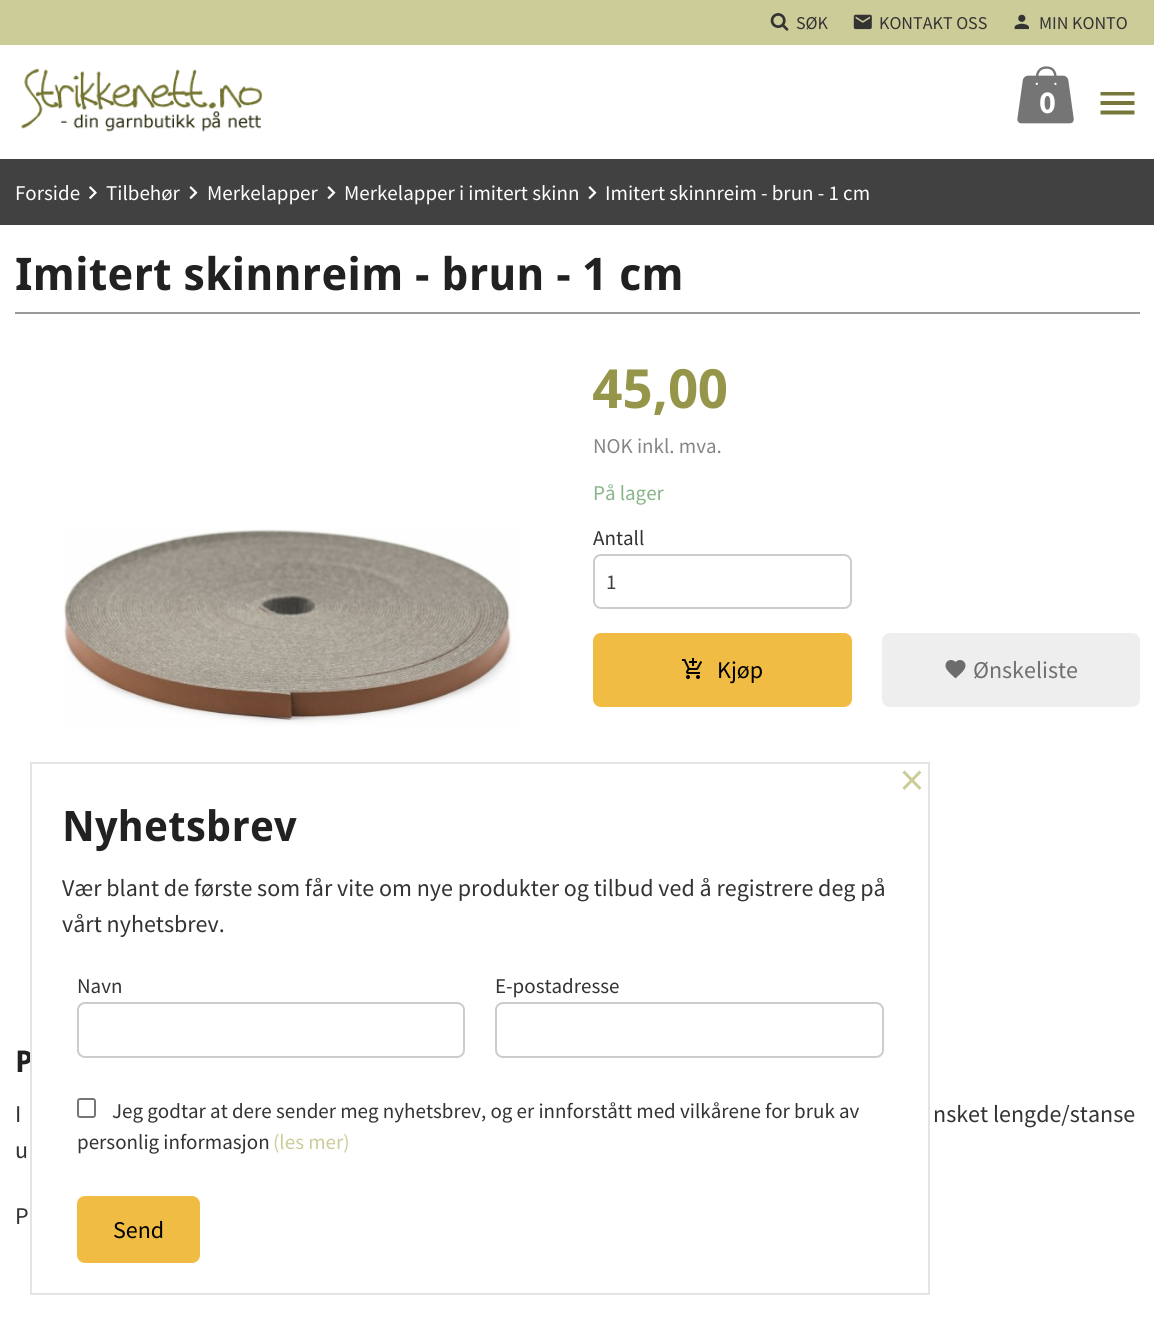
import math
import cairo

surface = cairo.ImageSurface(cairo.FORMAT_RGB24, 1154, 1324)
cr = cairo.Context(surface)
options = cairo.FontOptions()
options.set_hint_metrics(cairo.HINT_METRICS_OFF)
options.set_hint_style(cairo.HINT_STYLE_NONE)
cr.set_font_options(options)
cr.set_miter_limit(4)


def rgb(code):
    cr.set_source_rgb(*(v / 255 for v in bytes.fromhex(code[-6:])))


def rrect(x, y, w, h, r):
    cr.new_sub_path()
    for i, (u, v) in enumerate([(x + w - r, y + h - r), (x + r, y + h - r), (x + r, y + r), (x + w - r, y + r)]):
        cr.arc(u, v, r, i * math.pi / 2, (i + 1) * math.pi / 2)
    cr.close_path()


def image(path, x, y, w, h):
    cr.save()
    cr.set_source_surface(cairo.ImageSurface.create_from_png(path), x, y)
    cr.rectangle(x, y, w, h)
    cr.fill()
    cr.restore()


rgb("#414141")
cr.paint()
rgb("#cccc99")
cr.rectangle(0, 0, 1154, 45)
cr.fill()
image("img/1.png", 770, 13, 19, 18)
image("img/2.png", 853, 14, 19, 16)
image("img/3.png", 1014, 14, 15, 16)
rgb("#ffffff")
cr.rectangle(0, 45, 1154, 114)
cr.fill()
image("img/4.png", 21, 68, 241, 64)
image("img/5.png", 1017, 66, 57, 58)
rgb("#77773b")
cr.new_path()
cr.move_to(1100.5, 114.5)
cr.line_to(1134.5, 114.5)
cr.line_to(1134.5, 110.5)
cr.line_to(1100.5, 110.5)
cr.close_path()
cr.move_to(1100.5, 105)
cr.line_to(1134.5, 105)
cr.line_to(1134.5, 101)
cr.line_to(1100.5, 101)
cr.close_path()
cr.move_to(1100.5, 92)
cr.line_to(1100.5, 95.5)
cr.line_to(1134.5, 95.5)
cr.line_to(1134.5, 92)
cr.close_path()
cr.fill()
image("img/6.png", 89, 186, 8, 14)
image("img/7.png", 189, 186, 9, 14)
image("img/7.png", 327, 186, 9, 14)
image("img/7.png", 588, 186, 9, 14)
rgb("#ffffff")
cr.rectangle(0, 225, 1154, 1099)
cr.fill()
rgb("#999999")
cr.rectangle(15, 312, 1125, 2)
cr.fill()
image("img/8.png", 63, 529, 455, 197)
rrect(594, 555, 257, 53, 7)
rgb("#cccccc")
cr.stroke()
rgb("#f1bc43")
rrect(593, 633, 259, 74, 8)
cr.fill()
image("img/9.png", 682, 658, 20, 21)
rgb("#eeeeee")
rrect(882, 633, 258, 74, 8)
cr.fill()
image("img/10.png", 945, 660, 21, 19)
cr.select_font_face("Source Sans Pro")
cr.set_font_size(18)
rgb("#333333")
for x, y, s in [
    (796, 29, "SØK"),
    (879, 29, "KONTAKT OSS"),
    (1039, 29, "MIN KONTO"),
]:
    cr.move_to(x, y)
    cr.show_text(s)
cr.select_font_face("Source Sans Pro", cairo.FONT_SLANT_NORMAL, cairo.FONT_WEIGHT_BOLD)
cr.set_font_size(32)
rgb("#ffffff")
cr.move_to(1039, 113)
cr.show_text("0")
cr.select_font_face("Source Sans Pro")
cr.set_font_size(21)
for x, y, s in [
    (15, 200, "Forside"),
    (106, 200, "Tilbehør"),
    (207, 200, "Merkelapper"),
    (344, 200, "Merkelapper i imitert skinn"),
    (605, 200, "Imitert skinnreim - brun - 1 cm"),
]:
    cr.move_to(x, y)
    cr.show_text(s)
cr.select_font_face("Droid Sans", cairo.FONT_SLANT_NORMAL, cairo.FONT_WEIGHT_BOLD)
cr.set_font_size(45)
rgb("#212121")
cr.move_to(15, 290)
cr.show_text("Imitert skinnreim - brun - 1 cm")
cr.set_font_size(54)
rgb("#96964b")
cr.move_to(593, 408)
cr.show_text("45,00")
cr.select_font_face("Source Sans Pro")
cr.set_font_size(21)
rgb("#858585")
cr.move_to(593, 453)
cr.show_text("NOK inkl. mva.")
rgb("#88b588")
cr.move_to(593, 500)
cr.show_text("På lager")
rgb("#333333")
cr.move_to(593, 545)
cr.show_text("Antall")
rgb("#404040")
cr.move_to(606, 589)
cr.show_text("1")
cr.set_font_size(24)
rgb("#000000")
cr.move_to(717, 678)
cr.show_text("Kjøp")
rgb("#707070")
cr.move_to(973, 678)
cr.show_text("Ønskeliste")
cr.select_font_face("Droid Sans", cairo.FONT_SLANT_NORMAL, cairo.FONT_WEIGHT_BOLD)
cr.set_font_size(30)
rgb("#212121")
cr.move_to(15, 1072)
cr.show_text("P")
cr.select_font_face("Source Sans Pro")
cr.set_font_size(24)
rgb("#333333")
for x, y, s in [
    (15, 1122, "I"),
    (933, 1122, "nsket lengde/stanse"),
    (15, 1158, "u"),
    (15, 1224, "P"),
]:
    cr.move_to(x, y)
    cr.show_text(s)
cr.rectangle(31, 763, 898, 531)
rgb("#e4e4e4")
cr.stroke()
cr.set_font_size(48)
rgb("#cccc99")
cr.move_to(900, 796)
cr.show_text("×")
cr.select_font_face("Droid Sans", cairo.FONT_SLANT_NORMAL, cairo.FONT_WEIGHT_BOLD)
cr.set_font_size(42)
rgb("#212121")
cr.move_to(62, 841)
cr.show_text("Nyhetsbrev")
cr.select_font_face("Source Sans Pro")
cr.set_font_size(24)
rgb("#333333")
cr.move_to(62, 896)
cr.show_text("Vær blant de første som får vite om nye produkter og tilbud ved å registrere deg på")
cr.move_to(62, 932)
cr.show_text("vårt nyhetsbrev.")
cr.set_font_size(21)
cr.move_to(77, 993)
cr.show_text("Navn")
rrect(78, 1003, 386, 54, 7)
rgb("#cccccc")
cr.stroke()
rgb("#333333")
cr.move_to(495, 993)
cr.show_text("E-postadresse")
rrect(496, 1003, 387, 54, 7)
rgb("#cccccc")
cr.stroke()
rrect(78, 1099, 17, 18, 2)
rgb("#767676")
cr.stroke()
rgb("#333333")
cr.move_to(112, 1118)
cr.show_text("Jeg godtar at dere sender meg nyhetsbrev, og er innforstått med vilkårene for bruk av")
cr.move_to(77, 1149)
cr.show_text("personlig informasjon")
rgb("#cccc99")
cr.move_to(273, 1149)
cr.show_text("(les mer)")
rgb("#f1bc43")
rrect(77, 1196, 123, 67, 8)
cr.fill()
cr.set_font_size(24)
rgb("#000000")
cr.move_to(113, 1238)
cr.show_text("Send")
surface.write_to_png("page.png")
